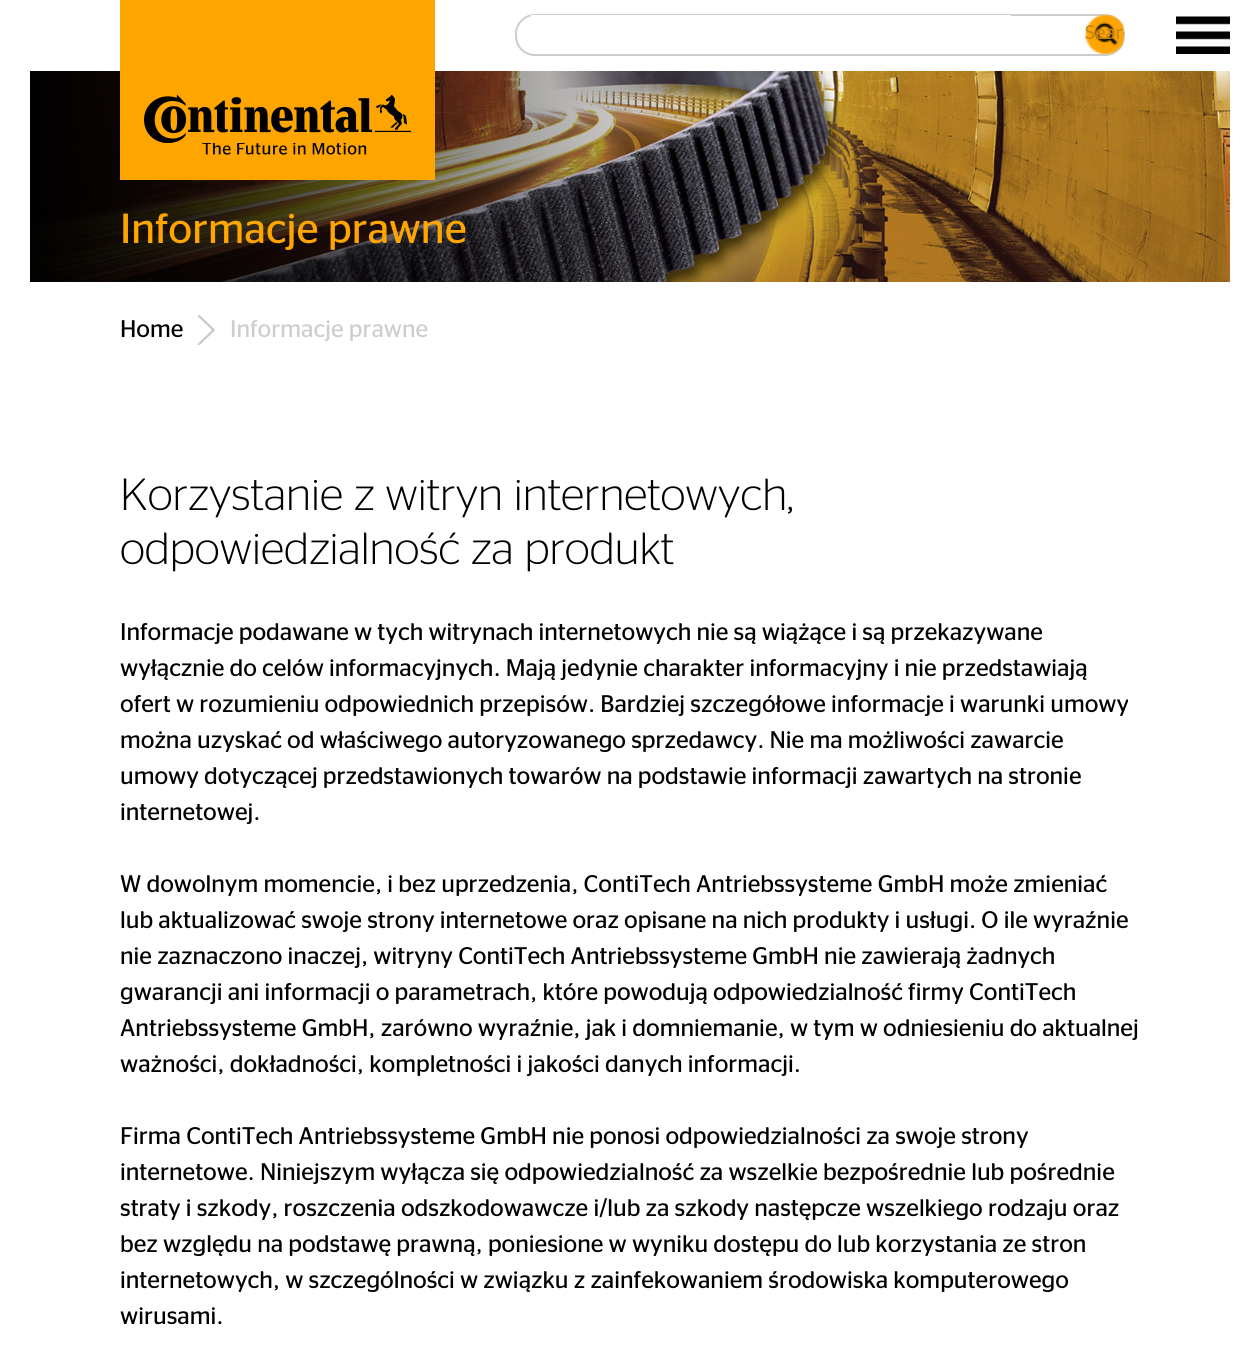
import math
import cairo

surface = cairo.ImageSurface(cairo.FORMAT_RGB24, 1259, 1359)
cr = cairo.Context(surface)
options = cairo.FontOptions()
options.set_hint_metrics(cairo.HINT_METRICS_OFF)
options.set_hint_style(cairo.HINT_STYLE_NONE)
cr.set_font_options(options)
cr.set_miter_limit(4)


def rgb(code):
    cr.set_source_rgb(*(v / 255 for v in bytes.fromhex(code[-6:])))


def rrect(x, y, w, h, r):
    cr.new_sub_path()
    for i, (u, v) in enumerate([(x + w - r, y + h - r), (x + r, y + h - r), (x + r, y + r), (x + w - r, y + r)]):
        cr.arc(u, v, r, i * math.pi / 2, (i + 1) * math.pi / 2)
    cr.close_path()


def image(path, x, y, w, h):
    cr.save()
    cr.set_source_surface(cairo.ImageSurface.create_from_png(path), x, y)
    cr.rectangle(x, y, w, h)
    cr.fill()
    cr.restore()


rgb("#ffffff")
cr.paint()
image("img/5.png", 30, 71, 1200, 211)
rgb("#ffa500")
cr.rectangle(120, 0, 315, 180)
cr.fill()
image("img/1.png", 144, 95, 267, 48)
image("img/2.png", 202, 143, 165, 12)
rrect(516, 15, 608, 40, 19)
rgb("#cdcdcd")
cr.stroke()
rgb("#ffffff")
cr.rectangle(531, 15, 480, 2)
cr.fill()
image("img/3.png", 1085, 15, 39, 39)
image("img/4.png", 1176, 16, 54, 38)
image("img/6.png", 198, 315, 17, 30)
cr.save()
rrect(1085, 15, 39, 39, 6)
cr.clip()
cr.select_font_face("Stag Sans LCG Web")
cr.set_font_size(19.5)
rgb("#c78611")
cr.move_to(1085, 39)
cr.show_text("Searc")
cr.restore()
cr.select_font_face("Stag Sans LCG Web")
cr.set_font_size(42)
rgb("#ffa500")
cr.move_to(120, 243)
cr.show_text("Informacje prawne")
cr.set_font_size(24)
rgb("#000000")
cr.move_to(120, 337)
cr.show_text("Home")
rgb("#cdcdcd")
cr.move_to(230, 337)
cr.show_text("Informacje prawne")
cr.select_font_face("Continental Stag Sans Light")
cr.set_font_size(45)
rgb("#000000")
cr.move_to(120, 510)
cr.show_text("Korzystanie z witryn internetowych,")
cr.move_to(120, 564)
cr.show_text("odpowiedzialność za produkt")
cr.select_font_face("Stag Sans LCG Web")
cr.set_font_size(24)
for x, y, s in [
    (120, 640, "Informacje podawane w tych witrynach internetowych nie są wiążące i są przekazywane"),
    (120, 676, "wyłącznie do celów informacyjnych. Mają jedynie charakter informacyjny i nie przedstawiają"),
    (120, 712, "ofert w rozumieniu odpowiednich przepisów. Bardziej szczegółowe informacje i warunki umowy"),
    (120, 748, "można uzyskać od właściwego autoryzowanego sprzedawcy. Nie ma możliwości zawarcie"),
    (120, 784, "umowy dotyczącej przedstawionych towarów na podstawie informacji zawartych na stronie"),
    (120, 820, "internetowej."),
    (120, 892, "W dowolnym momencie, i bez uprzedzenia, ContiTech Antriebssysteme GmbH może zmieniać"),
    (120, 928, "lub aktualizować swoje strony internetowe oraz opisane na nich produkty i usługi. O ile wyraźnie"),
    (120, 964, "nie zaznaczono inaczej, witryny ContiTech Antriebssysteme GmbH nie zawierają żadnych"),
    (120, 1000, "gwarancji ani informacji o parametrach, które powodują odpowiedzialność firmy ContiTech"),
    (120, 1036, "Antriebssysteme GmbH, zarówno wyraźnie, jak i domniemanie, w tym w odniesieniu do aktualnej"),
    (120, 1072, "ważności, dokładności, kompletności i jakości danych informacji."),
    (120, 1144, "Firma ContiTech Antriebssysteme GmbH nie ponosi odpowiedzialności za swoje strony"),
    (120, 1180, "internetowe. Niniejszym wyłącza się odpowiedzialność za wszelkie bezpośrednie lub pośrednie"),
    (120, 1216, "straty i szkody, roszczenia odszkodowawcze i/lub za szkody następcze wszelkiego rodzaju oraz"),
    (120, 1252, "bez względu na podstawę prawną, poniesione w wyniku dostępu do lub korzystania ze stron"),
    (120, 1288, "internetowych, w szczególności w związku z zainfekowaniem środowiska komputerowego"),
    (120, 1324, "wirusami."),
]:
    cr.move_to(x, y)
    cr.show_text(s)
surface.write_to_png("page.png")
